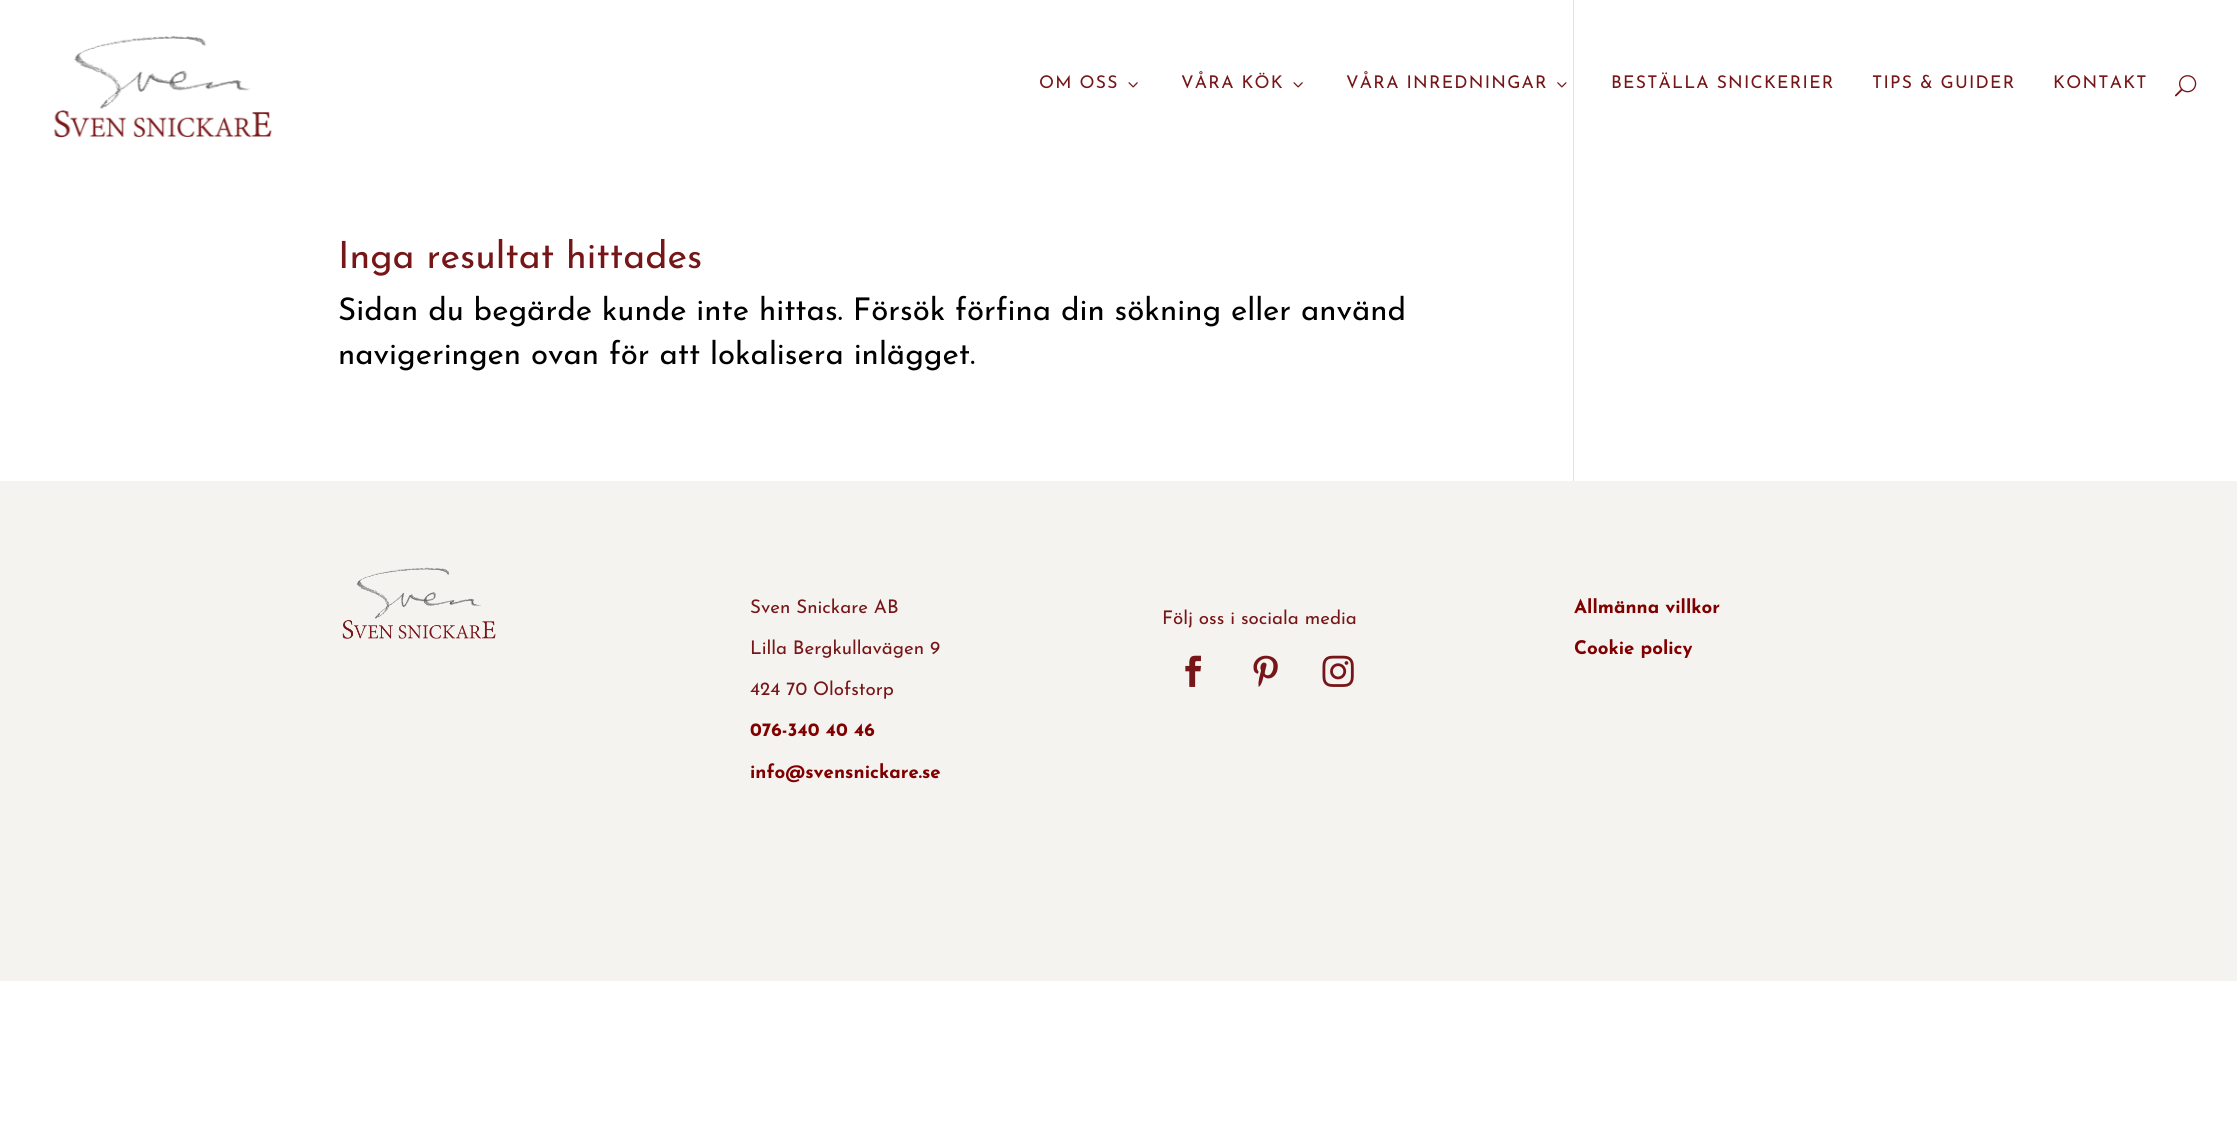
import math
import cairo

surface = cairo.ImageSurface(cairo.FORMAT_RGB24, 2237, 1145)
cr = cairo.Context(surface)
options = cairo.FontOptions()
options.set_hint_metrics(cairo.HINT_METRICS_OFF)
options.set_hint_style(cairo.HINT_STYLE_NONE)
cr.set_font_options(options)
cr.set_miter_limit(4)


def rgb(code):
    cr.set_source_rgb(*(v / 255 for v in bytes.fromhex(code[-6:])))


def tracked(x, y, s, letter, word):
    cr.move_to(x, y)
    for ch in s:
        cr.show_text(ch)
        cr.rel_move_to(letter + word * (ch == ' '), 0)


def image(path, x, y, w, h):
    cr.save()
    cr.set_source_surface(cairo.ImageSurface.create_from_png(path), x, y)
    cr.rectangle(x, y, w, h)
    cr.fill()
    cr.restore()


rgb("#ffffff")
cr.paint()
image("img/1.png", 53, 36, 219, 102)
image("img/2.png", 1128, 82, 10, 6)
image("img/2.png", 1293, 82, 10, 6)
image("img/3.png", 1557, 82, 10, 6)
image("img/4.png", 2175, 75, 22, 22)
rgb("#e2e2e2")
cr.rectangle(1573, 0, 1, 481)
cr.fill()
rgb("#f5f3f0")
cr.rectangle(0, 481, 2237, 500)
cr.fill()
image("img/5.png", 342, 567, 154, 72)
image("img/6.png", 1185, 655, 16, 32)
image("img/7.png", 1253, 655, 25, 32)
image("img/8.png", 1322, 655, 32, 32)
cr.select_font_face("Josefin Sans")
cr.set_font_size(17.5)
rgb("#771618")
for x, y, s in [
    (1039, 88, "OM OSS"),
    (1181, 88, "VÅRA KÖK"),
    (1346, 88, "VÅRA INREDNINGAR"),
    (1611, 88, "BESTÄLLA SNICKERIER"),
    (1872, 88, "TIPS & GUIDER"),
    (2053, 88, "KONTAKT"),
]:
    tracked(x, y, s, 1.25, 0)
cr.set_font_size(37.5)
cr.move_to(338, 268)
cr.show_text("Inga resultat hittades")
cr.set_font_size(31.25)
rgb("#000000")
cr.move_to(338, 320)
cr.show_text("Sidan du begärde kunde inte hittas. Försök förfina din sökning eller använd")
cr.move_to(338, 364)
cr.show_text("navigeringen ovan för att lokalisera inlägget.")
cr.set_font_size(18.75)
rgb("#771618")
for x, y, s in [
    (750, 613, "Sven Snickare AB"),
    (750, 654, "Lilla Bergkullavägen 9"),
    (750, 695, "424 70 Olofstorp"),
]:
    cr.move_to(x, y)
    cr.show_text(s)
cr.select_font_face("Josefin Sans", cairo.FONT_SLANT_NORMAL, cairo.FONT_WEIGHT_BOLD)
rgb("#800000")
cr.move_to(750, 736)
cr.show_text("076-340 40 46")
cr.move_to(750, 778)
cr.show_text("info@svensnickare.se")
cr.select_font_face("Josefin Sans")
rgb("#771618")
cr.move_to(1162, 624)
cr.show_text("Följ oss i sociala media")
cr.select_font_face("Josefin Sans", cairo.FONT_SLANT_NORMAL, cairo.FONT_WEIGHT_BOLD)
rgb("#800000")
cr.move_to(1574, 613)
cr.show_text("Allmänna villkor")
cr.move_to(1574, 654)
cr.show_text("Cookie policy")
surface.write_to_png("page.png")
